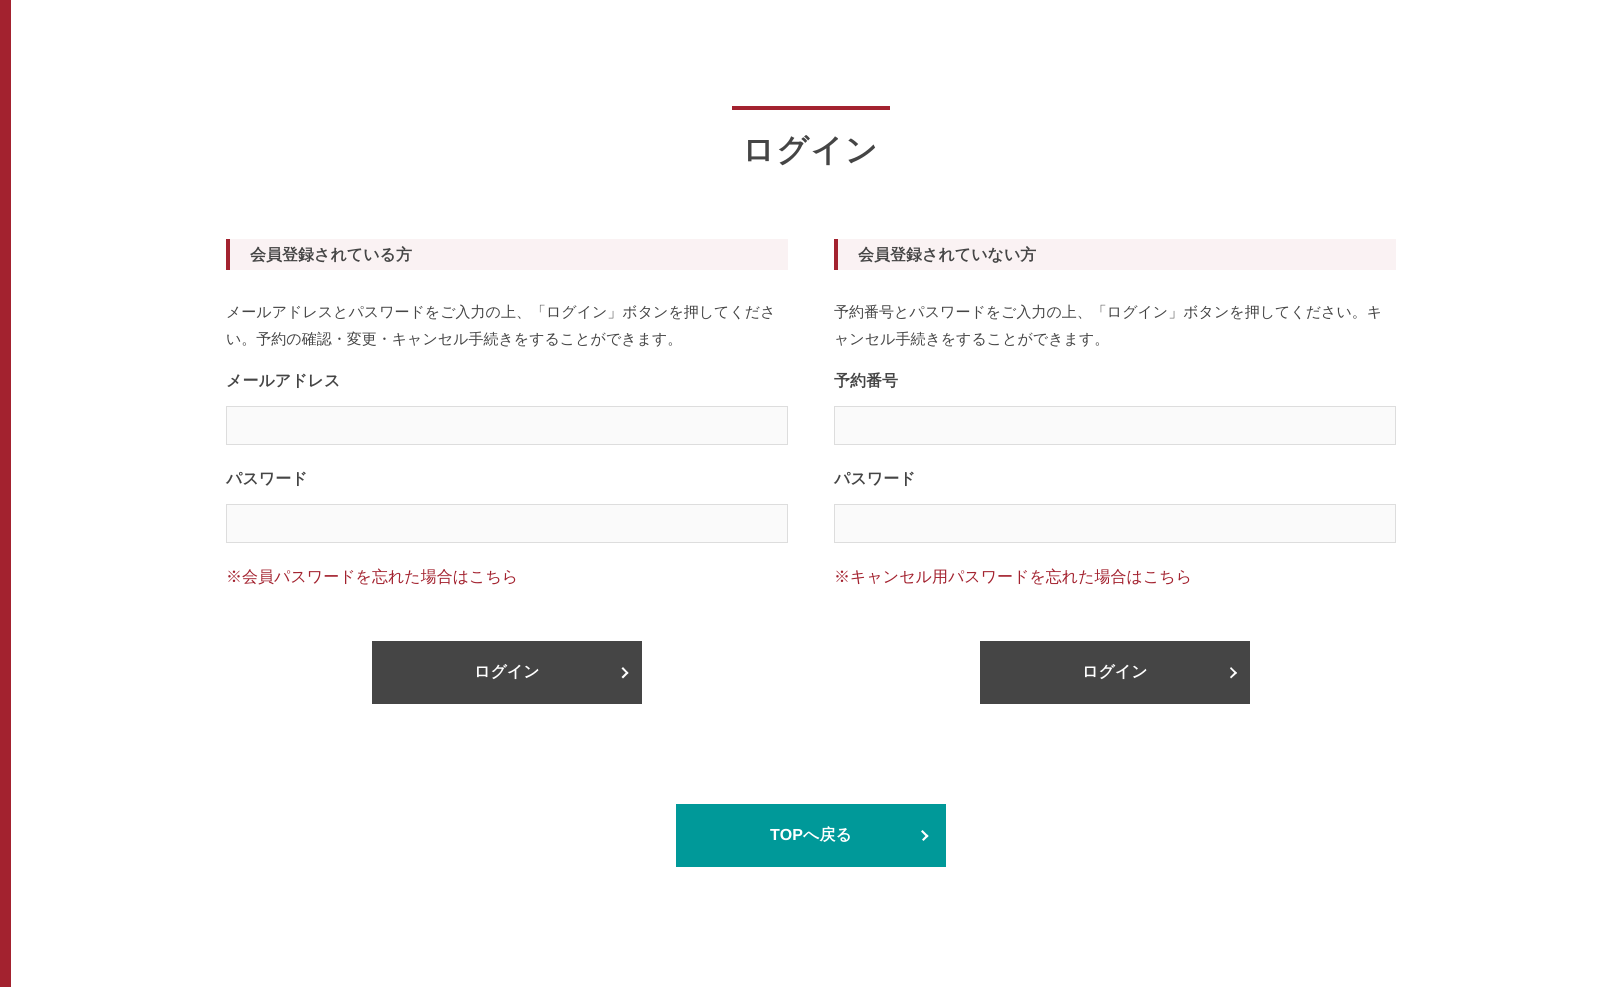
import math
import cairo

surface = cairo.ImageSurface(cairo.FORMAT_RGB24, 1611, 987)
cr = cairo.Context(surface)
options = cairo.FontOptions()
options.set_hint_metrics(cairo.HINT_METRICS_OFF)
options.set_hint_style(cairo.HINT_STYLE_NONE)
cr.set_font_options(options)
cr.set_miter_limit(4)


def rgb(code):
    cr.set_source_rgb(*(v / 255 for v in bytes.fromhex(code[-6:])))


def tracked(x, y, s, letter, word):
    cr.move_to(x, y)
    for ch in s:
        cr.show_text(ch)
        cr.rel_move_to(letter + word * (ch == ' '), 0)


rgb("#ffffff")
cr.paint()
for x, y, w, h, color in [
    (0, 0, 11, 987, "#a3222f"),
    (732, 106, 158, 4, "#a3222f"),
    (230, 239, 558, 31, "#faf2f3"),
    (226, 239, 4, 31, "#a3222f"),
]:
    rgb(color)
    cr.rectangle(x, y, w, h)
    cr.fill()
rgb("#fafafa")
cr.rectangle(226.5, 406.5, 561, 38)
cr.fill_preserve()
rgb("#dddddd")
cr.set_line_width(1)
cr.stroke()
rgb("#fafafa")
cr.rectangle(226.5, 504.5, 561, 38)
cr.fill_preserve()
rgb("#dddddd")
cr.stroke()
rgb("#454545")
cr.rectangle(372, 641, 270, 63)
cr.fill()
rgb("#ffffff")
cr.new_path()
cr.move_to(623, 667)
cr.line_to(628.5, 673)
cr.line_to(627, 674)
cr.line_to(621.5, 668.5)
cr.close_path()
cr.fill()
cr.new_path()
cr.move_to(627, 671.5)
cr.line_to(628.5, 673)
cr.line_to(623, 678.5)
cr.line_to(621.5, 677)
cr.close_path()
cr.fill()
rgb("#faf2f3")
cr.rectangle(838, 239, 558, 31)
cr.fill()
rgb("#a3222f")
cr.rectangle(834, 239, 4, 31)
cr.fill()
rgb("#fafafa")
cr.rectangle(834.5, 406.5, 561, 38)
cr.fill_preserve()
rgb("#dddddd")
cr.stroke()
rgb("#fafafa")
cr.rectangle(834.5, 504.5, 561, 38)
cr.fill_preserve()
rgb("#dddddd")
cr.stroke()
rgb("#454545")
cr.rectangle(980, 641, 270, 63)
cr.fill()
rgb("#ffffff")
cr.new_path()
cr.move_to(1231, 667)
cr.line_to(1237, 673)
cr.line_to(1235.5, 674)
cr.line_to(1230, 668.5)
cr.close_path()
cr.fill()
cr.new_path()
cr.move_to(1235.5, 671.5)
cr.line_to(1237, 673)
cr.line_to(1231, 678.5)
cr.line_to(1230, 677)
cr.close_path()
cr.fill()
rgb("#009999")
cr.rectangle(676, 804, 270, 63)
cr.fill()
rgb("#ffffff")
cr.new_path()
cr.move_to(922.5, 830)
cr.line_to(928.5, 836)
cr.line_to(927, 837.5)
cr.line_to(921, 831.5)
cr.close_path()
cr.fill()
cr.new_path()
cr.move_to(927, 834.5)
cr.line_to(928.5, 836)
cr.line_to(923.5, 841)
cr.line_to(922, 839.5)
cr.close_path()
cr.fill()
cr.select_font_face("WenQuanYi Zen Hei", cairo.FONT_SLANT_NORMAL, cairo.FONT_WEIGHT_BOLD)
cr.set_font_size(32)
rgb("#454545")
tracked(742, 161, "ログイン", 1.5, 0)
cr.set_font_size(16)
cr.move_to(250, 260)
cr.show_text("会員登録されている方")
cr.select_font_face("WenQuanYi Zen Hei Medium")
cr.set_font_size(15)
cr.move_to(226, 317)
cr.show_text("メールアドレスとパスワードをご入力の上、「ログイン」ボタンを押してくださ")
cr.move_to(226, 344)
cr.show_text("い。予約の確認・変更・キャンセル手続きをすることができます。")
cr.select_font_face("WenQuanYi Zen Hei", cairo.FONT_SLANT_NORMAL, cairo.FONT_WEIGHT_BOLD)
cr.set_font_size(16)
cr.move_to(226, 386)
cr.show_text("メールアドレス")
cr.move_to(226, 484)
cr.show_text("パスワード")
cr.select_font_face("WenQuanYi Zen Hei Medium")
rgb("#a3222f")
cr.move_to(226, 582)
cr.show_text("※会員パスワードを忘れた場合はこちら")
cr.select_font_face("WenQuanYi Zen Hei", cairo.FONT_SLANT_NORMAL, cairo.FONT_WEIGHT_BOLD)
rgb("#ffffff")
cr.move_to(474, 677)
cr.show_text("ログイン")
rgb("#454545")
cr.move_to(858, 260)
cr.show_text("会員登録されていない方")
cr.select_font_face("WenQuanYi Zen Hei Medium")
cr.set_font_size(15)
cr.move_to(834, 317)
cr.show_text("予約番号とパスワードをご入力の上、「ログイン」ボタンを押してください。キ")
cr.move_to(834, 344)
cr.show_text("ャンセル手続きをすることができます。")
cr.select_font_face("WenQuanYi Zen Hei", cairo.FONT_SLANT_NORMAL, cairo.FONT_WEIGHT_BOLD)
cr.set_font_size(16)
cr.move_to(834, 386)
cr.show_text("予約番号")
cr.move_to(834, 484)
cr.show_text("パスワード")
cr.select_font_face("WenQuanYi Zen Hei Medium")
rgb("#a3222f")
cr.move_to(834, 582)
cr.show_text("※キャンセル用パスワードを忘れた場合はこちら")
cr.select_font_face("WenQuanYi Zen Hei", cairo.FONT_SLANT_NORMAL, cairo.FONT_WEIGHT_BOLD)
rgb("#ffffff")
cr.move_to(1082, 677)
cr.show_text("ログイン")
cr.select_font_face("Liberation Sans", cairo.FONT_SLANT_NORMAL, cairo.FONT_WEIGHT_BOLD)
cr.move_to(770, 840)
cr.show_text("TOP")
cr.select_font_face("WenQuanYi Zen Hei", cairo.FONT_SLANT_NORMAL, cairo.FONT_WEIGHT_BOLD)
cr.move_to(803, 840)
cr.show_text("へ戻る")
surface.write_to_png("page.png")
